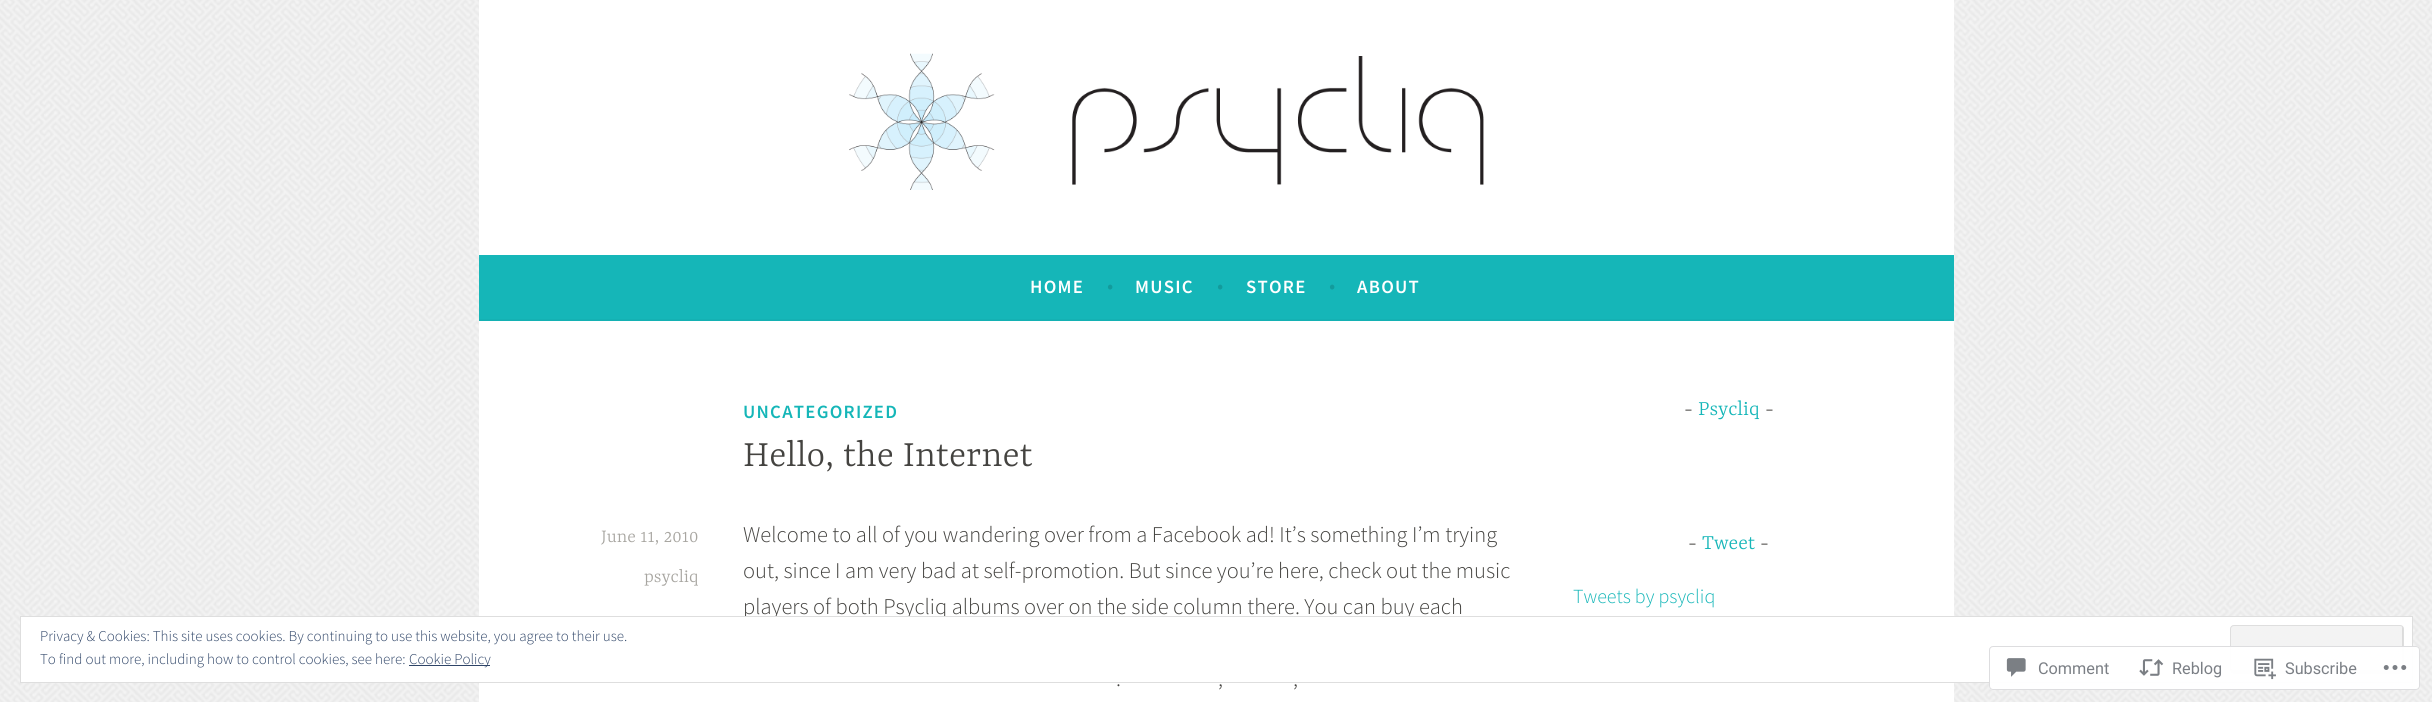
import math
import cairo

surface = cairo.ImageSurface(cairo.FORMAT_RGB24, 2432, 702)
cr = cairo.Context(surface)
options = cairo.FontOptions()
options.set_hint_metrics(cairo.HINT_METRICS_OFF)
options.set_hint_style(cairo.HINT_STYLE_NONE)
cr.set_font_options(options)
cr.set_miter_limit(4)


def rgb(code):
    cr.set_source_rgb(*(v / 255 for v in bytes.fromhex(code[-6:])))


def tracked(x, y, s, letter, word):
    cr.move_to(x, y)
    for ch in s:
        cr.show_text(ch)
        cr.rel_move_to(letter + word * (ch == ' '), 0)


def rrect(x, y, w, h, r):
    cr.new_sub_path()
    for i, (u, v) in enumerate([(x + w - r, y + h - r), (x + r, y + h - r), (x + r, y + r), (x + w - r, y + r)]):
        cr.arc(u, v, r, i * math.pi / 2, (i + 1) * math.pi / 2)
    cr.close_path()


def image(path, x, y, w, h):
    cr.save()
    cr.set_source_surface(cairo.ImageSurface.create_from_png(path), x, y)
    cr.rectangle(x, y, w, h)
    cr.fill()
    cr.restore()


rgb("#ffffff")
cr.paint()
image("img/1.png", 0, 0, 2432, 702)
rgb("#ffffff")
cr.rectangle(479, 0, 1475, 255)
cr.fill()
image("img/2.png", 849, 53, 635, 137)
rgb("#15b6b8")
cr.rectangle(479, 255, 1475, 66)
cr.fill()
cr.set_source_rgba(0, 0, 0, 0.03)
cr.rectangle(479, 319, 1475, 2)
cr.fill()
rgb("#ffffff")
cr.rectangle(479, 321, 1475, 381)
cr.fill()
cr.select_font_face("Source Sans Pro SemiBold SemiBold")
cr.set_font_size(18.75)
tracked(1030, 293, "HOME", 1.25, 0)
cr.select_font_face("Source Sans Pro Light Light")
cr.set_font_size(22.5)
rgb("#129b9c")
cr.move_to(1107, 293)
cr.show_text("•")
cr.select_font_face("Source Sans Pro SemiBold SemiBold")
cr.set_font_size(18.75)
rgb("#ffffff")
tracked(1135, 293, "MUSIC", 1.25, 0)
cr.select_font_face("Source Sans Pro Light Light")
cr.set_font_size(22.5)
rgb("#129b9c")
cr.move_to(1217, 293)
cr.show_text("•")
cr.select_font_face("Source Sans Pro SemiBold SemiBold")
cr.set_font_size(18.75)
rgb("#ffffff")
tracked(1246, 293, "STORE", 1.25, 0)
cr.select_font_face("Source Sans Pro Light Light")
cr.set_font_size(22.5)
rgb("#129b9c")
cr.move_to(1329, 293)
cr.show_text("•")
cr.select_font_face("Source Sans Pro SemiBold SemiBold")
cr.set_font_size(18.75)
rgb("#ffffff")
tracked(1357, 293, "ABOUT", 1.25, 0)
rgb("#15b6b8")
tracked(743, 418, "UNCATEGORIZED", 1.25, 0)
cr.select_font_face("Yrsa Light")
cr.set_font_size(40)
rgb("#444340")
cr.move_to(743, 466)
cr.show_text("Hello, the Internet")
cr.set_font_size(20)
rgb("#a8a6a1")
cr.move_to(601, 542)
cr.show_text("June 11, 2010")
cr.move_to(644, 582)
cr.show_text("psycliq")
cr.select_font_face("Source Sans Pro Light Light")
cr.set_font_size(22.5)
rgb("#444340")
for x, y, s in [
    (743, 542, "Welcome to all of you wandering over from a Facebook ad! It’s something I’m trying"),
    (743, 578, "out, since I am very bad at self-promotion. But since you’re here, check out the music"),
    (743, 614, "players of both Psycliq albums over on the side column there. You can buy each"),
]:
    cr.move_to(x, y)
    cr.show_text(s)
rgb("#ffffff")
cr.rectangle(20.5, 616.5, 2392, 66)
cr.fill_preserve()
rgb("#dedede")
cr.set_line_width(1)
cr.stroke()
rgb("#f3f3f3")
rrect(2230, 625, 174, 49, 4)
cr.fill()
rgb("#dbdbdb")
cr.new_path()
cr.move_to(2231, 668)
cr.line_to(2231, 670)
cr.curve_to(2231, 672, 2232, 673, 2234, 673)
cr.line_to(2400, 673)
cr.curve_to(2402, 673, 2403, 672, 2403, 670)
cr.line_to(2403, 628)
cr.curve_to(2403, 628, 2403, 627, 2402, 626)
cr.line_to(2402, 668)
cr.curve_to(2402, 669, 2401, 670, 2400, 670)
cr.line_to(2234, 670)
cr.curve_to(2232, 670, 2231, 669, 2231, 668)
cr.close_path()
cr.fill()
rrect(2230.5, 625.5, 173, 48, 3.5)
rgb("#dedede")
cr.stroke()
rgb("#2e4467")
cr.rectangle(409, 665, 81, 1)
cr.fill()
cr.set_font_size(15)
for x, y, s in [
    (409, 664, "Cookie Policy"),
    (40, 664, "To find out more, including how to control cookies, see here:"),
    (40, 641, "Privacy & Cookies: This site uses cookies. By continuing to use this website, you agree to their use."),
]:
    cr.move_to(x, y)
    cr.show_text(s)
cr.set_font_size(22.5)
rgb("#444340")
for x, y, s in [
    (1116, 686, "."),
    (1218, 686, ","),
    (1293, 686, ","),
]:
    cr.move_to(x, y)
    cr.show_text(s)
cr.select_font_face("Yrsa Light")
cr.move_to(1684, 415)
cr.show_text("-")
rgb("#15b6b8")
cr.move_to(1698, 415)
cr.show_text("Psycliq")
rgb("#444340")
cr.move_to(1765, 415)
cr.show_text("-")
cr.move_to(1688, 549)
cr.show_text("-")
rgb("#15b6b8")
cr.move_to(1702, 549)
cr.show_text("Tweet")
rgb("#444340")
cr.move_to(1760, 549)
cr.show_text("-")
cr.select_font_face("Source Sans Pro Light Light")
cr.set_font_size(20)
rgb("#15b6b8")
cr.move_to(1573, 603)
cr.show_text("Tweets by psycliq")
cr.set_source_rgba(1, 1, 1, 0.98)
rrect(1989, 646, 431, 44, 4)
cr.fill()
rrect(1989.5, 646.5, 430, 43, 3.5)
cr.set_source_rgba(0.863, 0.863, 0.871, 0.98)
cr.stroke()
image("img/3.png", 2006, 658, 20, 19)
cr.select_font_face("Roboto")
cr.set_font_size(16.25)
rgb("#7b7f85")
cr.move_to(2038, 674)
cr.show_text("Comment")
image("img/4.png", 2139, 659, 25, 17)
cr.move_to(2172, 674)
cr.show_text("Reblog")
image("img/5.png", 2254, 658, 22, 22)
cr.move_to(2285, 674)
cr.show_text("Subscribe")
image("img/6.png", 2383, 665, 24, 5)
surface.write_to_png("page.png")
